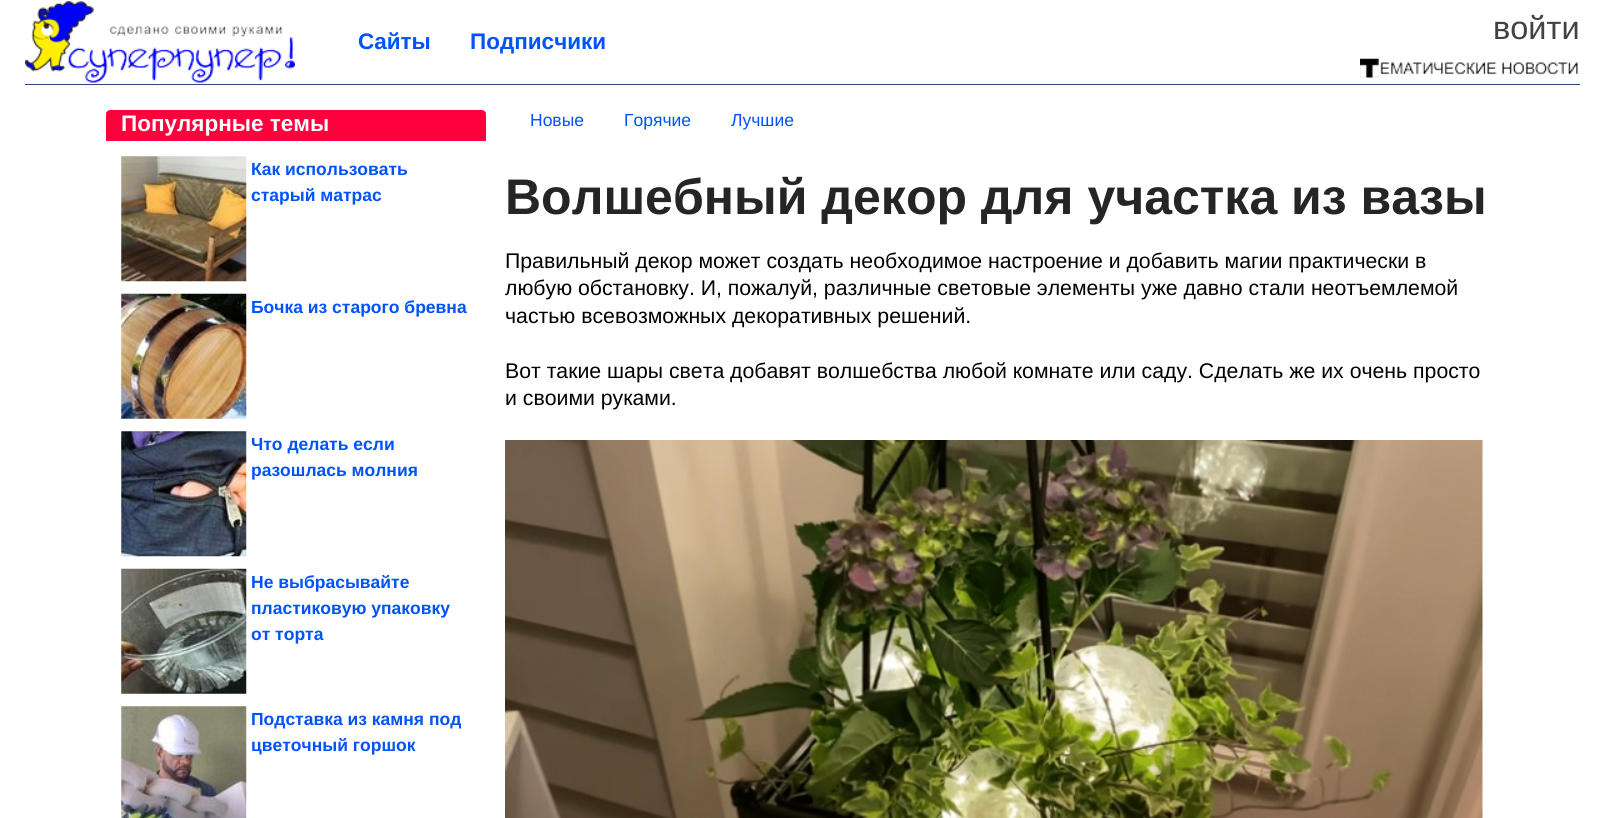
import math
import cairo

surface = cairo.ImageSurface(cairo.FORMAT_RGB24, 1604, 818)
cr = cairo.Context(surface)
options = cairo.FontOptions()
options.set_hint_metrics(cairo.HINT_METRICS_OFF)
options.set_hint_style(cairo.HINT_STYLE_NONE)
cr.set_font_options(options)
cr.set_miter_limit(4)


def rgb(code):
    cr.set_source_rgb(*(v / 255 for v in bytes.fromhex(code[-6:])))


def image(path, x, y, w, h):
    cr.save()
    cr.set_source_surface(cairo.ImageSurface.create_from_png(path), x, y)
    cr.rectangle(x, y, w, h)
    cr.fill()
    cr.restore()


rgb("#ffffff")
cr.paint()
rgb("#2e467a")
cr.rectangle(25, 84, 1555, 1)
cr.fill()
image("img/1.png", 25, 1, 270, 82)
image("img/2.png", 1360, 58, 218, 20)
rgb("#ff003c")
cr.new_path()
cr.move_to(110, 110)
cr.line_to(482, 110)
cr.curve_to(484, 110, 486, 112, 486, 114)
cr.line_to(486, 141)
cr.line_to(106, 141)
cr.line_to(106, 114)
cr.curve_to(106, 112, 108, 110, 110, 110)
cr.close_path()
cr.fill()
image("img/3.png", 121, 156, 126, 126)
image("img/4.png", 121, 293, 126, 126)
image("img/5.png", 121, 431, 126, 126)
image("img/6.png", 121, 568, 126, 126)
image("img/7.png", 121, 706, 126, 112)
image("img/8.png", 505, 440, 978, 378)
cr.select_font_face("Liberation Sans")
cr.set_font_size(32.5)
rgb("#424242")
cr.move_to(1493, 39)
cr.show_text("войти")
cr.select_font_face("Liberation Sans", cairo.FONT_SLANT_NORMAL, cairo.FONT_WEIGHT_BOLD)
cr.set_font_size(22.5)
rgb("#0053f9")
cr.move_to(358, 49)
cr.show_text("Сайты")
cr.move_to(470, 49)
cr.show_text("Подписчики")
rgb("#ffffff")
cr.move_to(121, 131)
cr.show_text("Популярные темы")
cr.set_font_size(17.5)
rgb("#0053f9")
for x, y, s in [
    (251, 175, "Как использовать"),
    (251, 201, "старый матрас"),
    (251, 313, "Бочка из старого бревна"),
    (251, 450, "Что делать если"),
    (251, 476, "разошлась молния"),
    (251, 588, "Не выбрасывайте"),
    (251, 614, "пластиковую упаковку"),
    (251, 640, "от торта"),
    (251, 725, "Подставка из камня под"),
    (251, 751, "цветочный горшок"),
]:
    cr.move_to(x, y)
    cr.show_text(s)
cr.select_font_face("Liberation Sans")
for x, y, s in [
    (530, 126, "Новые"),
    (624, 126, "Горячие"),
    (731, 126, "Лучшие"),
]:
    cr.move_to(x, y)
    cr.show_text(s)
cr.select_font_face("Liberation Sans", cairo.FONT_SLANT_NORMAL, cairo.FONT_WEIGHT_BOLD)
cr.set_font_size(50)
rgb("#252525")
cr.move_to(505, 214)
cr.show_text("Волшебный декор для участка из вазы")
cr.select_font_face("Liberation Sans")
cr.set_font_size(21.25)
rgb("#000000")
for x, y, s in [
    (505, 268, "Правильный декор может создать необходимое настроение и добавить магии практически в"),
    (505, 295, "любую обстановку. И, пожалуй, различные световые элементы уже давно стали неотъемлемой"),
    (505, 323, "частью всевозможных декоративных решений."),
    (505, 378, "Вот такие шары света добавят волшебства любой комнате или саду. Сделать же их очень просто"),
    (505, 405, "и своими руками."),
]:
    cr.move_to(x, y)
    cr.show_text(s)
surface.write_to_png("page.png")
